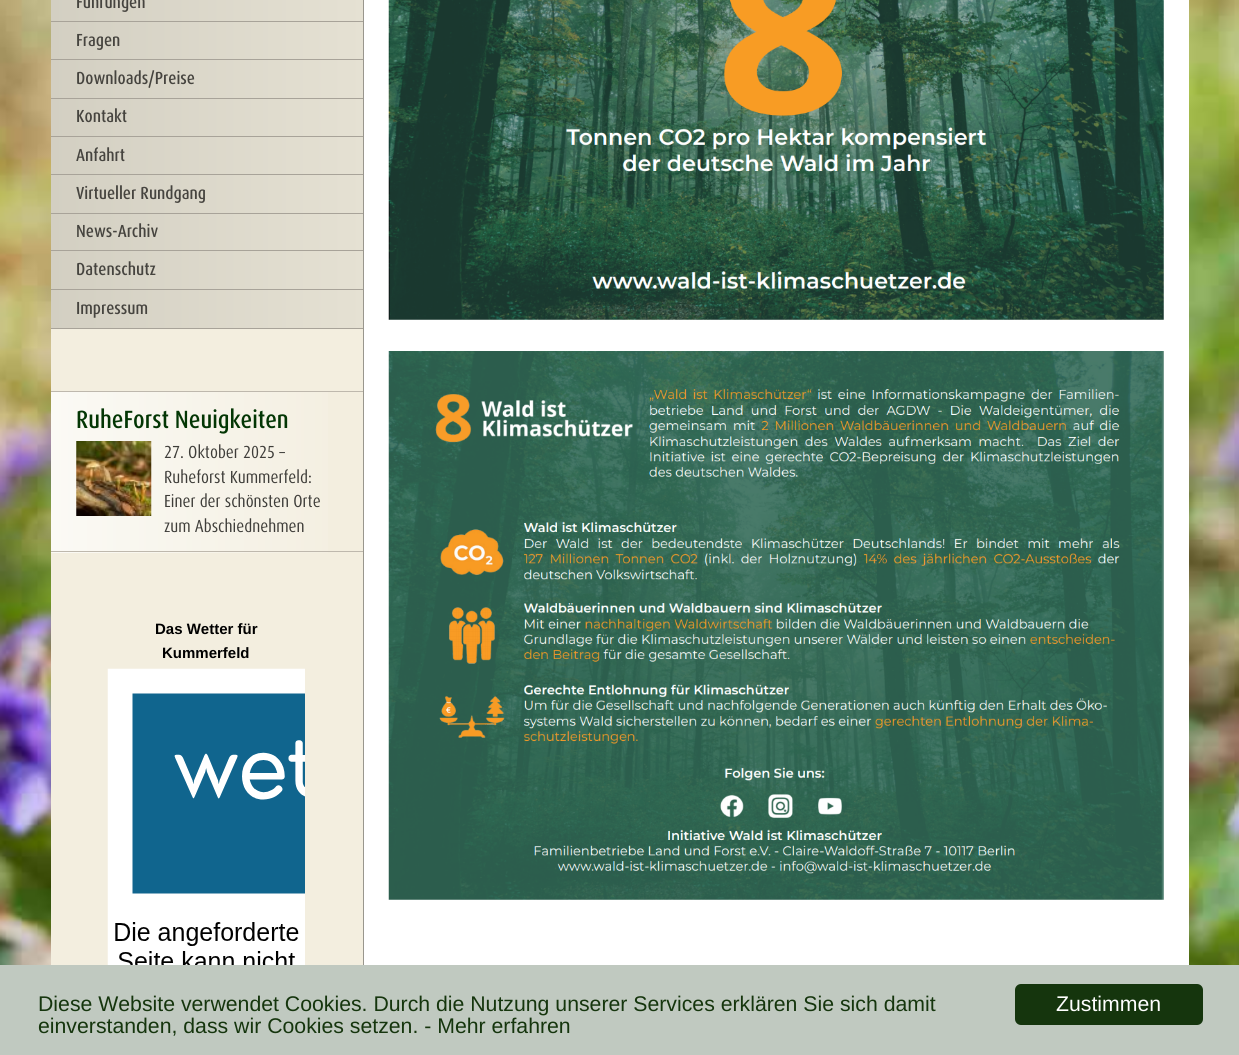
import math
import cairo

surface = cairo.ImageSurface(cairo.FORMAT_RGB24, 1239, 1055)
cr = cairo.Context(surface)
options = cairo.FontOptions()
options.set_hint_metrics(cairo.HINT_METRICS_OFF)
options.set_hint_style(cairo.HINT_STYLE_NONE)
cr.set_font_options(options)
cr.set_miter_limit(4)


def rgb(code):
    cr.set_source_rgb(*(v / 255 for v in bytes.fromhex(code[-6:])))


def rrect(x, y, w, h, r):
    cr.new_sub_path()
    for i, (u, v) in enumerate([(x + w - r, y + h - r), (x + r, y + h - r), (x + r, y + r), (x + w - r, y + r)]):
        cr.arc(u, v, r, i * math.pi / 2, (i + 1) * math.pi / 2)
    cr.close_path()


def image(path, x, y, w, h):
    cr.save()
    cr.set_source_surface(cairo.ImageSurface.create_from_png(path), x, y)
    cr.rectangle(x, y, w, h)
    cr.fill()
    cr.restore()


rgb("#ffffff")
cr.paint()
image("img/1.png", 0, 0, 1239, 965)
rgb("#f3eedf")
cr.rectangle(51, 329, 312, 636)
cr.fill()
rgb("#99968d")
cr.rectangle(363, 0, 1, 965)
cr.fill()
gradient = cairo.LinearGradient(51, 21, 363, 21)
gradient.add_color_stop_rgba(0, 0.827, 0.812, 0.761, 1)
gradient.add_color_stop_rgba(1, 0.898, 0.882, 0.827, 1)
cr.set_source(gradient)
cr.rectangle(51, 0, 312, 328)
cr.fill()
for x, y, w, h, color in [
    (51, 328, 312, 1, "#a8a399"),
    (51, 21, 312, 1, "#a8a399"),
    (51, 59, 312, 1, "#a8a399"),
    (51, 98, 312, 1, "#a8a399"),
    (51, 136, 312, 1, "#a8a399"),
    (51, 174, 312, 1, "#a8a399"),
    (51, 213, 312, 1, "#a8a399"),
    (51, 250, 312, 1, "#a8a399"),
    (51, 289, 312, 1, "#a8a399"),
]:
    rgb(color)
    cr.rectangle(x, y, w, h)
    cr.fill()
gradient = cairo.LinearGradient(51, 472, 363, 472)
gradient.add_color_stop_rgba(0, 0.984, 0.98, 0.961, 1)
gradient.add_color_stop_rgba(1, 0.953, 0.933, 0.875, 1)
cr.set_source(gradient)
cr.rectangle(51, 392, 277, 161)
cr.fill()
rgb("#beb8ad")
cr.rectangle(51, 391, 312, 1)
cr.fill()
cr.rectangle(51, 551, 312, 1)
cr.fill()
image("img/2.png", 76, 441, 76, 75)
image("img/3.png", 107, 668, 198, 297)
rgb("#ffffff")
cr.rectangle(364, 0, 825, 965)
cr.fill()
image("img/4.png", 388, 0, 776, 320)
image("img/5.png", 388, 351, 776, 549)
rgb("#c0c9c0")
cr.rectangle(0, 965, 1239, 90)
cr.fill()
rgb("#15350d")
rrect(1015, 984, 188, 41, 6)
cr.fill()
cr.select_font_face("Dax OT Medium")
cr.set_font_size(17.5)
rgb("#46443f")
for x, y, s in [
    (76, 8, "Führungen"),
    (76, 46, "Fragen"),
    (76, 84, "Downloads/Preise"),
    (76, 122, "Kontakt"),
    (76, 161, "Anfahrt"),
    (76, 199, "Virtueller Rundgang"),
    (76, 237, "News-Archiv"),
    (76, 275, "Datenschutz"),
    (76, 314, "Impressum"),
]:
    cr.move_to(x, y)
    cr.show_text(s)
cr.set_font_size(25)
rgb("#033604")
cr.move_to(76, 428)
cr.show_text("RuheForst Neuigkeiten")
cr.select_font_face("Dax OT")
cr.set_font_size(17.5)
rgb("#3e3d39")
for x, y, s in [
    (164, 458, "27. Oktober 2025 –"),
    (164, 483, "Ruheforst Kummerfeld:"),
    (164, 507, "Einer der schönsten Orte"),
    (164, 532, "zum Abschiednehmen"),
]:
    cr.move_to(x, y)
    cr.show_text(s)
cr.select_font_face("Liberation Sans", cairo.FONT_SLANT_NORMAL, cairo.FONT_WEIGHT_BOLD)
cr.set_font_size(15)
rgb("#000000")
cr.move_to(155, 634)
cr.show_text("Das Wetter für")
cr.move_to(162, 658)
cr.show_text("Kummerfeld")
cr.select_font_face("Liberation Sans")
cr.set_font_size(21.25)
rgb("#15350d")
cr.move_to(38, 1011)
cr.show_text("Diese Website verwendet Cookies. Durch die Nutzung unserer Services erklären Sie sich damit")
cr.move_to(38, 1033)
cr.show_text("einverstanden, dass wir Cookies setzen. - Mehr erfahren")
rgb("#ffffff")
cr.move_to(1056, 1011)
cr.show_text("Zustimmen")
surface.write_to_png("page.png")
